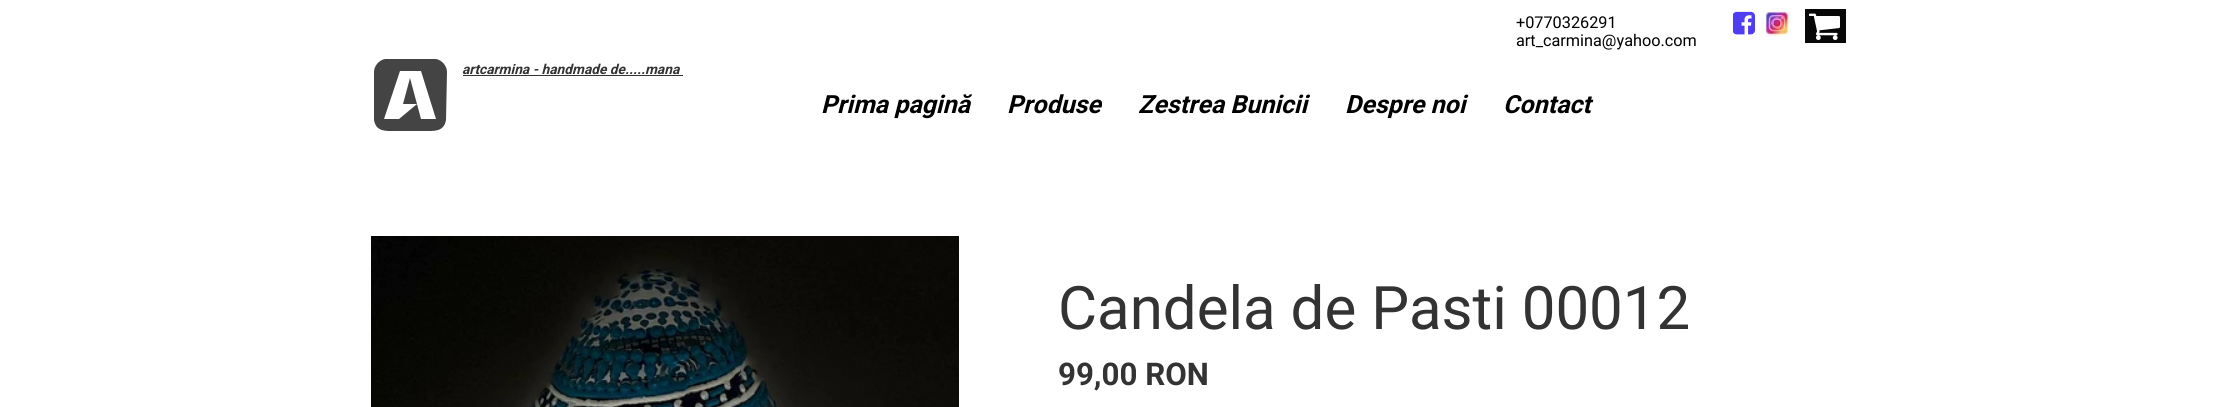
import math
import cairo

surface = cairo.ImageSurface(cairo.FORMAT_RGB24, 2216, 407)
cr = cairo.Context(surface)
options = cairo.FontOptions()
options.set_hint_metrics(cairo.HINT_METRICS_OFF)
options.set_hint_style(cairo.HINT_STYLE_NONE)
cr.set_font_options(options)
cr.set_miter_limit(4)


def rgb(code):
    cr.set_source_rgb(*(v / 255 for v in bytes.fromhex(code[-6:])))


def image(path, x, y, w, h):
    cr.save()
    cr.set_source_surface(cairo.ImageSurface.create_from_png(path), x, y)
    cr.rectangle(x, y, w, h)
    cr.fill()
    cr.restore()


rgb("#ffffff")
cr.paint()
image("img/1.png", 1733, 11, 22, 24)
image("img/2.png", 1761, 7, 31, 30)
rgb("#080808")
cr.rectangle(1805, 9, 41, 34)
cr.fill()
image("img/3.png", 1809, 13, 31, 27)
rgb("#444444")
cr.new_path()
cr.move_to(417, 104)
cr.line_to(403, 104)
cr.line_to(410, 78)
cr.close_path()
cr.move_to(421, 119)
cr.line_to(436, 119)
cr.line_to(421, 71)
cr.line_to(400, 71)
cr.line_to(384, 119)
cr.line_to(399, 119)
cr.line_to(417, 104)
cr.close_path()
cr.move_to(447, 72)
cr.line_to(446, 120)
cr.curve_to(444, 132, 434, 131, 425, 131)
cr.line_to(395, 131)
cr.curve_to(386, 131, 376, 132, 374, 120)
cr.line_to(374, 72)
cr.curve_to(374, 66, 379, 60, 385, 59)
cr.line_to(436, 59)
cr.curve_to(442, 60, 447, 66, 447, 72)
cr.close_path()
cr.fill()
rgb("#333333")
cr.rectangle(463, 75, 220, 1)
cr.fill()
image("img/4.png", 371, 236, 588, 171)
cr.select_font_face("Roboto")
cr.set_font_size(16.25)
rgb("#000000")
cr.move_to(1516, 28)
cr.show_text("+0770326291")
cr.move_to(1516, 46)
cr.show_text("art_carmina@yahoo.com")
cr.select_font_face("Roboto", cairo.FONT_SLANT_ITALIC, cairo.FONT_WEIGHT_BOLD)
cr.set_font_size(13.75)
rgb("#333333")
cr.move_to(462, 74)
cr.show_text("artcarmina - handmade de.....mana")
cr.set_font_size(25)
rgb("#000000")
for x, y, s in [
    (821, 113, "Prima pagină"),
    (1007, 113, "Produse"),
    (1138, 113, "Zestrea Bunicii"),
    (1345, 113, "Despre noi"),
    (1503, 113, "Contact"),
]:
    cr.move_to(x, y)
    cr.show_text(s)
cr.select_font_face("Roboto")
cr.set_font_size(60)
rgb("#333333")
cr.move_to(1058, 329)
cr.show_text("Candela de Pasti 00012")
cr.select_font_face("Roboto", cairo.FONT_SLANT_NORMAL, cairo.FONT_WEIGHT_BOLD)
cr.set_font_size(31.25)
cr.move_to(1058, 385)
cr.show_text("99,00 RON")
surface.write_to_png("page.png")
